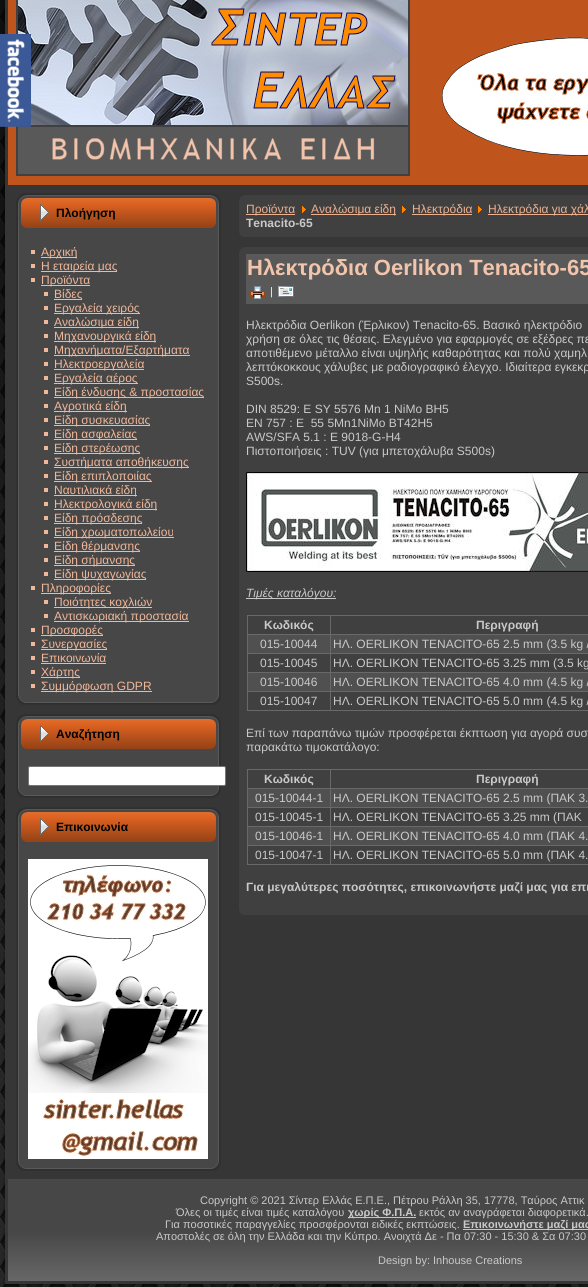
import math
import cairo

surface = cairo.ImageSurface(cairo.FORMAT_RGB24, 588, 1287)
cr = cairo.Context(surface)
options = cairo.FontOptions()
options.set_hint_metrics(cairo.HINT_METRICS_OFF)
options.set_hint_style(cairo.HINT_STYLE_NONE)
cr.set_font_options(options)
cr.set_miter_limit(4)


def rgb(code):
    cr.set_source_rgb(*(v / 255 for v in bytes.fromhex(code[-6:])))


def rrect(x, y, w, h, r):
    cr.new_sub_path()
    for i, (u, v) in enumerate([(x + w - r, y + h - r), (x + r, y + h - r), (x + r, y + r), (x + w - r, y + r)]):
        cr.arc(u, v, r, i * math.pi / 2, (i + 1) * math.pi / 2)
    cr.close_path()


def image(path, x, y, w, h):
    cr.save()
    cr.set_source_surface(cairo.ImageSurface.create_from_png(path), x, y)
    cr.rectangle(x, y, w, h)
    cr.fill()
    cr.restore()


rgb("#ffffff")
cr.paint()
image("img/1.png", 0, 982, 588, 305)
image("img/2.png", 0, 0, 5, 982)
image("img/3.png", 3, 0, 18, 1268)
rgb("#363636")
cr.rectangle(21, 185, 567, 994)
cr.fill()
image("img/4.png", 8, 0, 580, 185)
image("img/5.png", 16, 0, 394, 176)
image("img/6.png", 16, 193, 20, 20)
image("img/7.png", 36, 193, 165, 5)
image("img/8.png", 201, 193, 20, 20)
image("img/9.png", 16, 213, 20, 472)
image("img/10.png", 21, 198, 166, 30)
image("img/12.png", 201, 213, 20, 472)
image("img/11.png", 187, 198, 29, 30)
for x, y, w, h, color in [
    (31, 250, 4, 4, "#f0b799"),
    (36, 228, 165, 457, "#474747"),
    (41, 257, 36, 1, "#f0b799"),
    (31, 264, 4, 4, "#f0b799"),
    (41, 271, 76, 1, "#f0b799"),
    (31, 278, 4, 4, "#f0b799"),
    (41, 285, 49, 1, "#f0b799"),
    (44, 292, 4, 4, "#f0b799"),
    (54, 299, 28, 1, "#f0b799"),
    (44, 306, 4, 4, "#f0b799"),
    (54, 313, 86, 1, "#f0b799"),
    (44, 320, 4, 4, "#f0b799"),
    (54, 327, 85, 1, "#f0b799"),
    (44, 334, 4, 4, "#f0b799"),
    (54, 341, 102, 1, "#f0b799"),
    (44, 348, 4, 4, "#f0b799"),
    (54, 355, 136, 1, "#f0b799"),
    (44, 362, 4, 4, "#f0b799"),
    (54, 369, 90, 1, "#f0b799"),
    (44, 376, 4, 4, "#f0b799"),
    (54, 383, 84, 1, "#f0b799"),
    (44, 390, 4, 4, "#f0b799"),
    (54, 397, 150, 1, "#f0b799"),
    (44, 404, 4, 4, "#f0b799"),
    (54, 411, 73, 1, "#f0b799"),
    (44, 418, 4, 4, "#f0b799"),
    (54, 425, 96, 1, "#f0b799"),
    (44, 432, 4, 4, "#f0b799"),
    (54, 439, 83, 1, "#f0b799"),
    (44, 446, 4, 4, "#f0b799"),
    (54, 453, 86, 1, "#f0b799"),
    (44, 460, 4, 4, "#f0b799"),
    (54, 467, 135, 1, "#f0b799"),
    (44, 474, 4, 4, "#f0b799"),
    (54, 481, 98, 1, "#f0b799"),
    (44, 488, 4, 4, "#f0b799"),
    (54, 495, 83, 1, "#f0b799"),
    (44, 502, 4, 4, "#f0b799"),
    (54, 509, 103, 1, "#f0b799"),
    (44, 516, 4, 4, "#f0b799"),
    (54, 523, 88, 1, "#f0b799"),
    (44, 530, 4, 4, "#f0b799"),
    (54, 537, 120, 1, "#f0b799"),
    (44, 544, 4, 4, "#f0b799"),
    (54, 551, 86, 1, "#f0b799"),
    (44, 558, 4, 4, "#f0b799"),
    (54, 565, 81, 1, "#f0b799"),
    (44, 572, 4, 4, "#f0b799"),
    (54, 579, 92, 1, "#f0b799"),
    (31, 586, 4, 4, "#f0b799"),
    (41, 593, 70, 1, "#f0b799"),
    (44, 600, 4, 4, "#f0b799"),
    (54, 607, 98, 1, "#f0b799"),
    (44, 614, 4, 4, "#f0b799"),
    (54, 621, 135, 1, "#f0b799"),
    (31, 628, 4, 4, "#f0b799"),
    (41, 635, 62, 1, "#f0b799"),
    (31, 642, 4, 4, "#f0b799"),
    (41, 649, 66, 1, "#f0b799"),
    (31, 656, 4, 4, "#f0b799"),
    (41, 663, 65, 1, "#f0b799"),
    (31, 670, 4, 4, "#f0b799"),
    (41, 677, 39, 1, "#f0b799"),
]:
    rgb(color)
    cr.rectangle(x, y, w, h)
    cr.fill()
image("img/13.png", 16, 685, 20, 20)
cr.rectangle(31, 684, 4, 4)
cr.fill()
image("img/14.png", 36, 685, 165, 20)
cr.rectangle(41, 691, 111, 1)
cr.fill()
image("img/15.png", 201, 685, 20, 20)
image("img/6.png", 16, 714, 20, 20)
image("img/7.png", 36, 714, 165, 5)
image("img/8.png", 201, 714, 20, 20)
image("img/16.png", 16, 734, 20, 44)
image("img/10.png", 21, 719, 166, 30)
image("img/17.png", 201, 734, 20, 32)
image("img/11.png", 187, 719, 29, 30)
image("img/13.png", 16, 778, 20, 20)
rgb("#ffffff")
rrect(28.5, 766.5, 197, 19, 1.5)
cr.fill_preserve()
rgb("#767676")
cr.set_line_width(1)
cr.stroke()
rgb("#474747")
cr.rectangle(36, 749, 165, 17)
cr.fill()
image("img/18.png", 36, 786, 165, 12)
image("img/19.png", 201, 786, 20, 12)
image("img/6.png", 16, 807, 20, 20)
image("img/7.png", 36, 807, 165, 5)
image("img/8.png", 201, 807, 20, 20)
image("img/20.png", 16, 827, 20, 324)
image("img/10.png", 21, 812, 166, 30)
image("img/22.png", 201, 827, 20, 324)
image("img/11.png", 187, 812, 29, 30)
image("img/13.png", 16, 1151, 20, 20)
image("img/15.png", 201, 1151, 20, 20)
image("img/21.png", 28, 859, 180, 300)
cr.rectangle(36, 842, 165, 17)
cr.fill()
image("img/18.png", 36, 1159, 165, 12)
image("img/23.png", 0, 34, 31, 93)
image("img/24.png", 239, 195, 6, 6)
for x, y, w, h, color in [
    (245, 195, 343, 6, "#404040"),
    (239, 201, 349, 30, "#404040"),
    (246, 214, 49, 1, "#eeb190"),
]:
    rgb(color)
    cr.rectangle(x, y, w, h)
    cr.fill()
image("img/25.png", 302, 206, 4, 7)
cr.rectangle(311, 214, 85, 1)
cr.fill()
image("img/25.png", 402, 206, 4, 7)
cr.rectangle(412, 214, 60, 1)
cr.fill()
image("img/25.png", 478, 206, 4, 7)
cr.rectangle(488, 214, 100, 1)
cr.fill()
image("img/26.png", 239, 231, 6, 6)
rgb("#404040")
cr.rectangle(245, 231, 343, 6)
cr.fill()
image("img/24.png", 239, 247, 6, 6)
for x, y, w, h, color in [
    (245, 247, 343, 6, "#404040"),
    (239, 253, 349, 656, "#404040"),
    (246, 254, 342, 50, "#595959"),
]:
    rgb(color)
    cr.rectangle(x, y, w, h)
    cr.fill()
image("img/27.png", 250, 286, 15, 13)
image("img/28.png", 278, 286, 16, 11)
image("img/29.png", 246, 472, 342, 100)
for x, y, w, h, color in [
    (246, 598, 90, 1, "#c9c9c9"),
    (330, 615, 258, 1, "#696969"),
    (330, 634, 258, 1, "#696969"),
    (330, 653, 258, 1, "#696969"),
    (330, 672, 258, 1, "#696969"),
    (330, 691, 258, 1, "#696969"),
    (330, 710, 258, 1, "#696969"),
    (330, 691, 1, 20, "#696969"),
    (247, 691, 84, 1, "#696969"),
    (330, 672, 1, 20, "#696969"),
    (247, 672, 84, 1, "#696969"),
    (330, 653, 1, 20, "#696969"),
    (247, 653, 84, 1, "#696969"),
    (330, 634, 1, 20, "#696969"),
    (247, 634, 84, 1, "#696969"),
    (330, 615, 1, 20, "#696969"),
    (247, 615, 84, 1, "#696969"),
    (247, 710, 84, 1, "#696969"),
    (247, 691, 1, 20, "#696969"),
    (247, 672, 1, 20, "#696969"),
    (247, 653, 1, 20, "#696969"),
    (247, 634, 1, 20, "#696969"),
    (247, 615, 1, 20, "#696969"),
    (248, 635, 82, 18, "#505050"),
    (331, 635, 257, 18, "#505050"),
    (248, 673, 82, 18, "#505050"),
    (331, 673, 257, 18, "#505050"),
    (330, 769, 258, 1, "#696969"),
    (330, 788, 258, 1, "#696969"),
    (330, 807, 258, 1, "#696969"),
    (330, 826, 258, 1, "#696969"),
    (330, 845, 258, 1, "#696969"),
    (330, 864, 258, 1, "#696969"),
    (330, 845, 1, 20, "#696969"),
    (247, 845, 84, 1, "#696969"),
    (330, 826, 1, 20, "#696969"),
    (247, 826, 84, 1, "#696969"),
    (330, 807, 1, 20, "#696969"),
    (247, 807, 84, 1, "#696969"),
    (330, 788, 1, 20, "#696969"),
    (247, 788, 84, 1, "#696969"),
    (330, 769, 1, 20, "#696969"),
    (247, 769, 84, 1, "#696969"),
    (247, 864, 84, 1, "#696969"),
    (247, 845, 1, 20, "#696969"),
    (247, 826, 1, 20, "#696969"),
    (247, 807, 1, 20, "#696969"),
    (247, 788, 1, 20, "#696969"),
    (247, 769, 1, 20, "#696969"),
    (248, 789, 82, 18, "#505050"),
    (331, 789, 257, 18, "#505050"),
    (248, 827, 82, 18, "#505050"),
    (331, 827, 257, 18, "#505050"),
]:
    rgb(color)
    cr.rectangle(x, y, w, h)
    cr.fill()
image("img/26.png", 239, 909, 6, 6)
for x, y, w, h, color in [
    (245, 909, 343, 6, "#404040"),
    (8, 1179, 580, 52, "#474747"),
    (348, 1217, 68, 1, "#c4c4c4"),
    (463, 1229, 125, 1, "#c4c4c4"),
]:
    rgb(color)
    cr.rectangle(x, y, w, h)
    cr.fill()
image("img/31.png", 3, 1268, 18, 18)
image("img/30.png", 8, 1231, 580, 50)
image("img/32.png", 21, 1281, 567, 6)
cr.select_font_face("Liberation Sans", cairo.FONT_SLANT_NORMAL, cairo.FONT_WEIGHT_BOLD)
cr.set_font_size(12)
rgb("#000000")
cr.move_to(56, 217)
cr.show_text("Πλοήγηση")
cr.select_font_face("Liberation Sans")
rgb("#f0b799")
for x, y, s in [
    (41, 256, "Αρχική"),
    (41, 270, "Η εταιρεία μας"),
    (41, 284, "Προϊόντα"),
    (54, 298, "Βίδες"),
    (54, 312, "Εργαλεία χειρός"),
    (54, 326, "Αναλώσιμα είδη"),
    (54, 340, "Μηχανουργικά είδη"),
    (54, 354, "Μηχανήματα/Εξαρτήματα"),
    (54, 368, "Ηλεκτροεργαλεία"),
    (54, 382, "Εργαλεία αέρος"),
    (54, 396, "Είδη ένδυσης & προστασίας"),
    (54, 410, "Αγροτικά είδη"),
    (54, 424, "Είδη συσκευασίας"),
    (54, 438, "Είδη ασφαλείας"),
    (54, 452, "Είδη στερέωσης"),
    (54, 466, "Συστήματα αποθήκευσης"),
    (54, 480, "Είδη επιπλοποιίας"),
    (54, 494, "Ναυτιλιακά είδη"),
    (54, 508, "Ηλεκτρολογικά είδη"),
    (54, 522, "Είδη πρόσδεσης"),
    (54, 536, "Είδη χρωματοπωλείου"),
    (54, 550, "Είδη θέρμανσης"),
    (54, 564, "Είδη σήμανσης"),
    (54, 578, "Είδη ψυχαγωγίας"),
    (41, 592, "Πληροφορίες"),
    (54, 606, "Ποιότητες κοχλιών"),
    (54, 620, "Αντισκωριακή προστασία"),
    (41, 634, "Προσφορές"),
    (41, 648, "Συνεργασίες"),
    (41, 662, "Επικοινωνία"),
    (41, 676, "Χάρτης"),
    (41, 690, "Συμμόρφωση GDPR"),
]:
    cr.move_to(x, y)
    cr.show_text(s)
cr.select_font_face("Liberation Sans", cairo.FONT_SLANT_NORMAL, cairo.FONT_WEIGHT_BOLD)
rgb("#000000")
cr.move_to(56, 738)
cr.show_text("Αναζήτηση")
cr.move_to(56, 831)
cr.show_text("Επικοινωνία")
cr.select_font_face("Liberation Sans")
rgb("#eeb190")
for x, y, s in [
    (246, 213, "Προϊόντα"),
    (311, 213, "Αναλώσιμα είδη"),
    (412, 213, "Ηλεκτρόδια"),
    (488, 213, "Ηλεκτρόδια για χάλ"),
]:
    cr.move_to(x, y)
    cr.show_text(s)
cr.select_font_face("Liberation Sans", cairo.FONT_SLANT_NORMAL, cairo.FONT_WEIGHT_BOLD)
rgb("#c9c9c9")
cr.move_to(246, 227)
cr.show_text("Tenacito-65")
cr.set_font_size(22)
rgb("#f2c4ab")
cr.move_to(247, 275)
cr.show_text("Ηλεκτρόδια Oerlikon Tenacito-65")
cr.select_font_face("Liberation Sans")
cr.set_font_size(11)
rgb("#fdf0d8")
cr.move_to(270, 295)
cr.show_text("|")
cr.set_font_size(12)
rgb("#c9c9c9")
for x, y, s in [
    (246, 329, "Ηλεκτρόδια Oerlikon (Έρλικον) Tenacito-65. Βασικό ηλεκτρόδιο"),
    (246, 343, "χρήση σε όλες τις θέσεις. Ελεγμένο για εφαρμογές σε εξέδρες πε"),
    (246, 357, "αποτιθέμενο μέταλλο είναι υψηλής καθαρότητας και πολύ χαμηλ"),
    (246, 371, "λεπτόκοκκους χάλυβες με ραδιογραφικό έλεγχο. Ιδιαίτερα εγκεκρ"),
    (246, 385, "S500s."),
    (246, 413, "DIN 8529: E SY 5576 Mn 1 NiMo BH5"),
    (246, 427, "EN 757 : E  55 5Mn1NiMo BT42H5"),
    (246, 441, "AWS/SFA 5.1 : E 9018-G-H4"),
    (246, 455, "Πιστοποιήσεις : TUV (για μπετοχάλυβα S500s)"),
]:
    cr.move_to(x, y)
    cr.show_text(s)
cr.select_font_face("Liberation Sans", cairo.FONT_SLANT_ITALIC)
cr.move_to(246, 597)
cr.show_text("Τιμές καταλόγου:")
cr.select_font_face("Liberation Sans", cairo.FONT_SLANT_NORMAL, cairo.FONT_WEIGHT_BOLD)
cr.move_to(264, 629)
cr.show_text("Κωδικός")
cr.move_to(476, 629)
cr.show_text("Περιγραφή")
cr.select_font_face("Liberation Sans")
for x, y, s in [
    (260, 648, "015-10044"),
    (333, 648, "ΗΛ. OERLIKON TENACITO-65 2.5 mm (3.5 kg /"),
    (260, 667, "015-10045"),
    (333, 667, "ΗΛ. OERLIKON TENACITO-65 3.25 mm (3.5 kg"),
    (260, 686, "015-10046"),
    (333, 686, "ΗΛ. OERLIKON TENACITO-65 4.0 mm (4.5 kg /"),
    (260, 705, "015-10047"),
    (333, 705, "ΗΛ. OERLIKON TENACITO-65 5.0 mm (4.5 kg /"),
    (246, 737, "Επί των παραπάνω τιμών προσφέρεται έκπτωση για αγορά συσ"),
    (246, 751, "παρακάτω τιμοκατάλογο:"),
]:
    cr.move_to(x, y)
    cr.show_text(s)
cr.select_font_face("Liberation Sans", cairo.FONT_SLANT_NORMAL, cairo.FONT_WEIGHT_BOLD)
cr.move_to(264, 783)
cr.show_text("Κωδικός")
cr.move_to(476, 783)
cr.show_text("Περιγραφή")
cr.select_font_face("Liberation Sans")
for x, y, s in [
    (255, 802, "015-10044-1"),
    (333, 802, "ΗΛ. OERLIKON TENACITO-65 2.5 mm (ΠΑΚ 3."),
    (255, 821, "015-10045-1"),
    (333, 821, "ΗΛ. OERLIKON TENACITO-65 3.25 mm (ΠΑΚ"),
    (255, 840, "015-10046-1"),
    (333, 840, "ΗΛ. OERLIKON TENACITO-65 4.0 mm (ΠΑΚ 4."),
    (255, 859, "015-10047-1"),
    (333, 859, "ΗΛ. OERLIKON TENACITO-65 5.0 mm (ΠΑΚ 4."),
]:
    cr.move_to(x, y)
    cr.show_text(s)
cr.select_font_face("Liberation Sans", cairo.FONT_SLANT_NORMAL, cairo.FONT_WEIGHT_BOLD)
cr.move_to(246, 891)
cr.show_text("Για μεγαλύτερες ποσότητες, επικοινωνήστε μαζί μας για επι")
cr.select_font_face("Liberation Sans")
cr.set_font_size(11)
cr.move_to(200, 1204)
cr.show_text("Copyright © 2021 Σίντερ Ελλάς Ε.Π.Ε., Πέτρου Ράλλη 35, 17778, Ταύρος Αττικ")
cr.move_to(176, 1216)
cr.show_text("Όλες οι τιμές είναι τιμές καταλόγου")
cr.select_font_face("Liberation Sans", cairo.FONT_SLANT_NORMAL, cairo.FONT_WEIGHT_BOLD)
cr.move_to(348, 1216)
cr.show_text("χωρίς Φ.Π.Α.")
cr.select_font_face("Liberation Sans")
cr.move_to(419, 1216)
cr.show_text("εκτός αν αναγράφεται διαφορετικά.")
cr.move_to(165, 1228)
cr.show_text("Για ποσοτικές παραγγελίες προσφέρονται ειδικές εκπτώσεις.")
cr.select_font_face("Liberation Sans", cairo.FONT_SLANT_NORMAL, cairo.FONT_WEIGHT_BOLD)
cr.move_to(463, 1228)
cr.show_text("Επικοινωνήστε μαζί μας")
cr.select_font_face("Liberation Sans")
cr.move_to(156, 1240)
cr.show_text("Αποστολές σε όλη την Ελλάδα και την Κύπρο. Ανοιχτά Δε - Πα 07:30 - 15:30 & Σα 07:30")
cr.move_to(378, 1264)
cr.show_text("Design by: Inhouse Creations")
surface.write_to_png("page.png")
